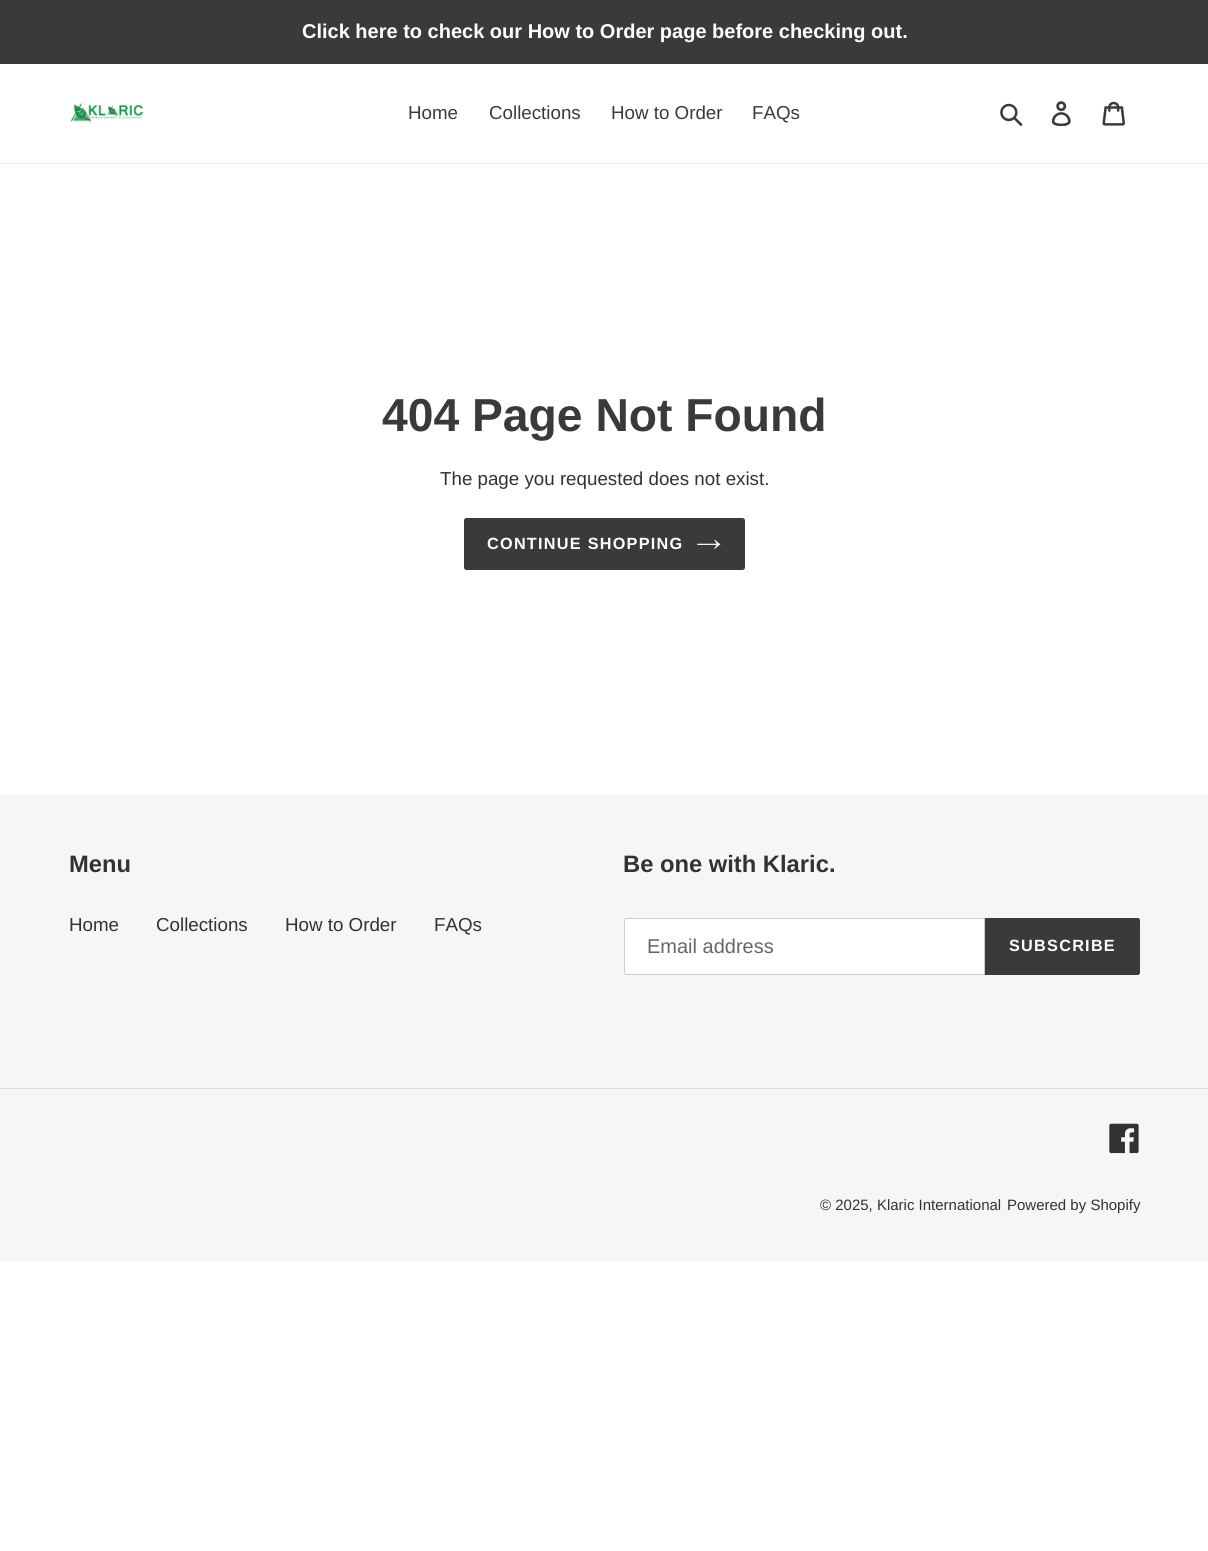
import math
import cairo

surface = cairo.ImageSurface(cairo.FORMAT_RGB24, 1208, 1551)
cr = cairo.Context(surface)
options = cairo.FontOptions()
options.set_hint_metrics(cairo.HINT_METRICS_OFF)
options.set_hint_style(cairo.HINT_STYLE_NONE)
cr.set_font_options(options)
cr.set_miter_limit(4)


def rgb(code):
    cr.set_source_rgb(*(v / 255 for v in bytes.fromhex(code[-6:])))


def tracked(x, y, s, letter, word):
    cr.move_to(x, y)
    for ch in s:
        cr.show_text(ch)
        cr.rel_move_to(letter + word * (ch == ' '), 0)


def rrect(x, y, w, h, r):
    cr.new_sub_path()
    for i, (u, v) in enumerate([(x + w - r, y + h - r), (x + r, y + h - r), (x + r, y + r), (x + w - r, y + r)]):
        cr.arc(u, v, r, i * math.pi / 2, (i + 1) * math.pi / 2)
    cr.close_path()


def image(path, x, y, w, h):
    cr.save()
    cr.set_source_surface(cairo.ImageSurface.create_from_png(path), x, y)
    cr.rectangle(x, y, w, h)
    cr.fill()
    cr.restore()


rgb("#ffffff")
cr.paint()
rgb("#3a3a3a")
cr.rectangle(0, 0, 1208, 64)
cr.fill()
rgb("#ebebeb")
cr.rectangle(0, 163, 1208, 1)
cr.fill()
image("img/1.png", 70, 103, 73, 19)
image("img/2.png", 1000, 103, 23, 23)
image("img/3.png", 1051, 101, 20, 25)
image("img/4.png", 1102, 101, 23, 25)
rgb("#3a3a3a")
rrect(464, 518, 281, 52, 2.5)
cr.fill()
image("img/5.png", 697, 539, 24, 10)
rgb("#f6f6f6")
cr.rectangle(0, 795, 1208, 466)
cr.fill()
rgb("#ffffff")
cr.new_path()
cr.move_to(626.5, 918.5)
cr.line_to(984.5, 918.5)
cr.line_to(984.5, 974.5)
cr.line_to(626.5, 974.5)
cr.curve_to(625.5, 974.5, 624.5, 973.5, 624.5, 972.5)
cr.line_to(624.5, 920.5)
cr.curve_to(624.5, 919.5, 625.5, 918.5, 626.5, 918.5)
cr.close_path()
cr.fill_preserve()
rgb("#cccccc")
cr.set_line_width(1)
cr.stroke()
rgb("#3a3a3a")
cr.new_path()
cr.move_to(985, 918)
cr.line_to(1137.5, 918)
cr.curve_to(1139, 918, 1140, 919, 1140, 920.5)
cr.line_to(1140, 972.5)
cr.curve_to(1140, 974, 1139, 975, 1137.5, 975)
cr.line_to(985, 975)
cr.close_path()
cr.fill()
rgb("#dddddd")
cr.rectangle(0, 1088, 1208, 1)
cr.fill()
image("img/6.png", 1109, 1123, 30, 31)
cr.select_font_face("Liberation Sans", cairo.FONT_SLANT_NORMAL, cairo.FONT_WEIGHT_BOLD)
cr.set_font_size(20)
rgb("#ffffff")
cr.move_to(302, 38)
cr.show_text("Click here to check our How to Order page before checking out.")
cr.select_font_face("Liberation Sans")
cr.set_font_size(18.75)
rgb("#3a3a3a")
for x, y, s in [
    (408, 119, "Home"),
    (489, 119, "Collections"),
    (611, 119, "How to Order"),
    (752, 119, "FAQs"),
]:
    cr.move_to(x, y)
    cr.show_text(s)
cr.select_font_face("Liberation Sans", cairo.FONT_SLANT_NORMAL, cairo.FONT_WEIGHT_BOLD)
cr.set_font_size(46.25)
cr.move_to(382, 431)
cr.show_text("404 Page Not Found")
cr.select_font_face("Liberation Sans")
cr.set_font_size(18.75)
rgb("#333232")
cr.move_to(440, 485)
cr.show_text("The page you requested does not exist.")
cr.select_font_face("Liberation Sans", cairo.FONT_SLANT_NORMAL, cairo.FONT_WEIGHT_BOLD)
cr.set_font_size(16.25)
rgb("#ffffff")
tracked(487, 549, "CONTINUE SHOPPING", 1.25, 0)
cr.set_font_size(23.75)
rgb("#333232")
cr.move_to(69, 872)
cr.show_text("Menu")
cr.select_font_face("Liberation Sans")
cr.set_font_size(18.75)
for x, y, s in [
    (69, 931, "Home"),
    (156, 931, "Collections"),
    (285, 931, "How to Order"),
    (434, 931, "FAQs"),
]:
    cr.move_to(x, y)
    cr.show_text(s)
cr.select_font_face("Liberation Sans", cairo.FONT_SLANT_NORMAL, cairo.FONT_WEIGHT_BOLD)
cr.set_font_size(23.75)
cr.move_to(623, 872)
cr.show_text("Be one with Klaric.")
cr.select_font_face("Liberation Sans")
cr.set_font_size(20)
rgb("#666666")
cr.move_to(647, 953)
cr.show_text("Email address")
cr.select_font_face("Liberation Sans", cairo.FONT_SLANT_NORMAL, cairo.FONT_WEIGHT_BOLD)
cr.set_font_size(16.25)
rgb("#ffffff")
tracked(1009, 951, "SUBSCRIBE", 1.25, 0)
cr.select_font_face("Liberation Sans")
cr.set_font_size(15)
rgb("#333232")
cr.move_to(820, 1210)
cr.show_text("© 2025, Klaric International")
cr.move_to(1007, 1210)
cr.show_text("Powered by Shopify")
surface.write_to_png("page.png")
